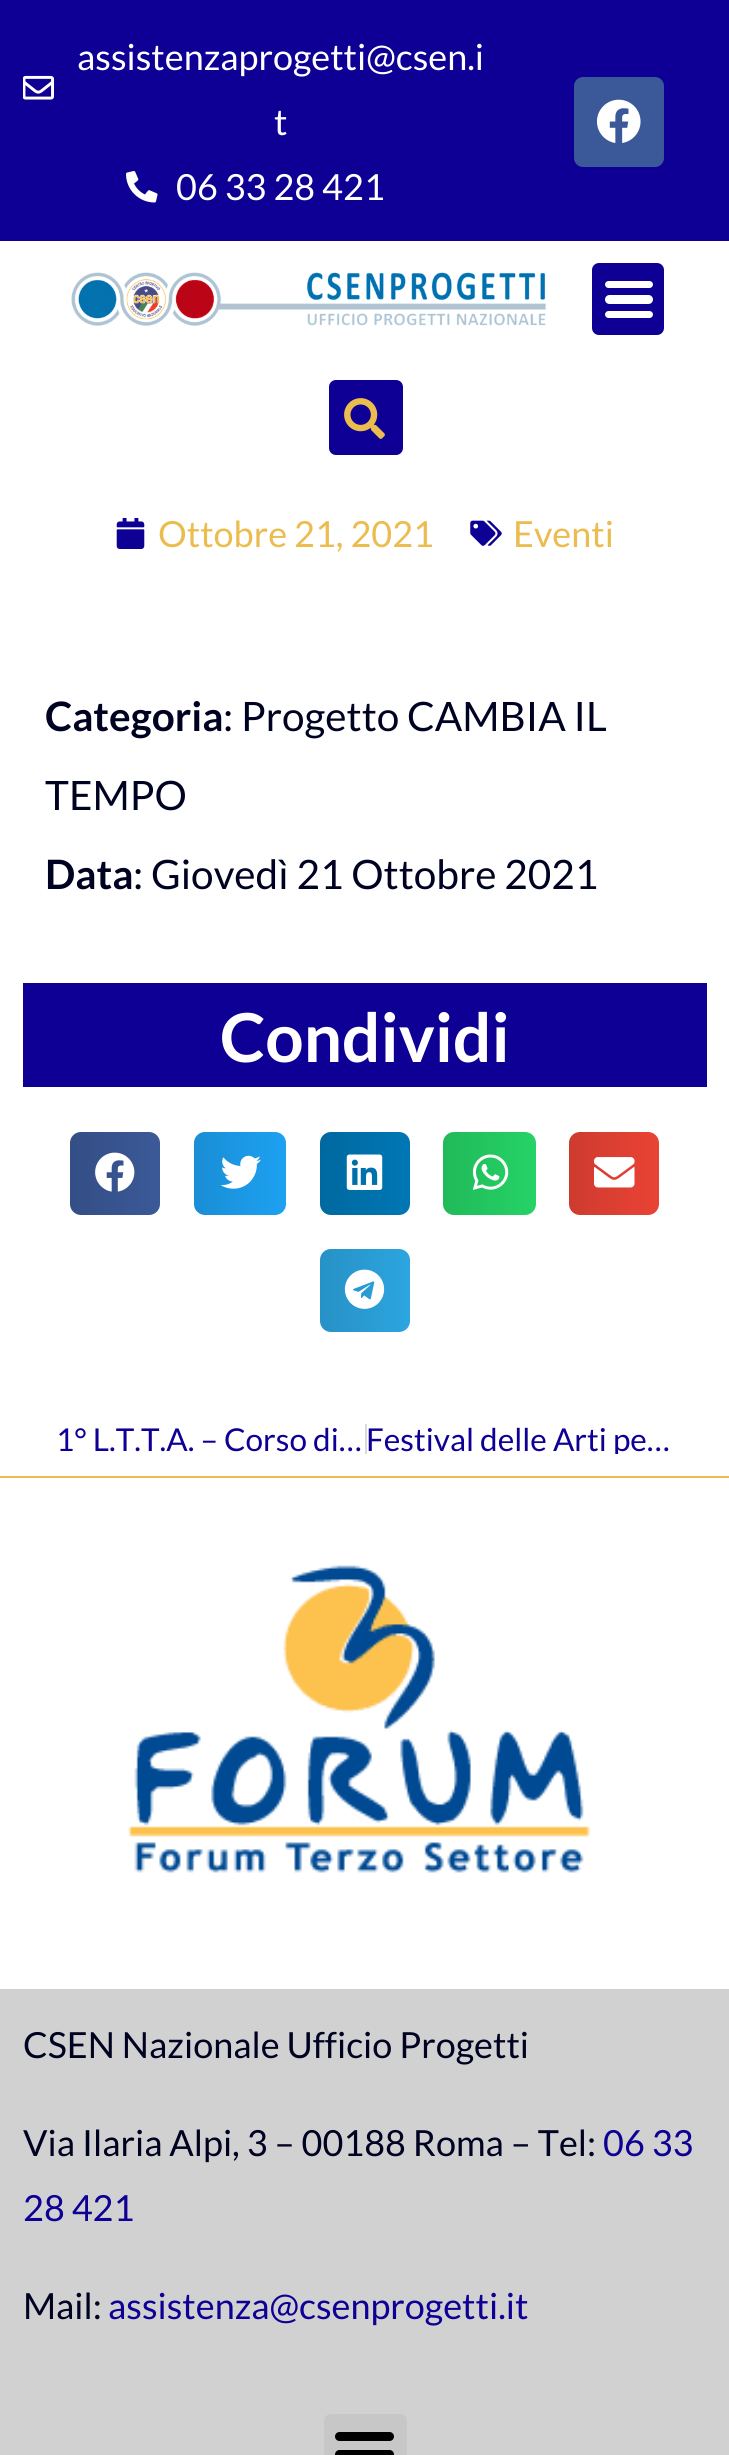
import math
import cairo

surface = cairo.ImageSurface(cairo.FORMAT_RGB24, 729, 2455)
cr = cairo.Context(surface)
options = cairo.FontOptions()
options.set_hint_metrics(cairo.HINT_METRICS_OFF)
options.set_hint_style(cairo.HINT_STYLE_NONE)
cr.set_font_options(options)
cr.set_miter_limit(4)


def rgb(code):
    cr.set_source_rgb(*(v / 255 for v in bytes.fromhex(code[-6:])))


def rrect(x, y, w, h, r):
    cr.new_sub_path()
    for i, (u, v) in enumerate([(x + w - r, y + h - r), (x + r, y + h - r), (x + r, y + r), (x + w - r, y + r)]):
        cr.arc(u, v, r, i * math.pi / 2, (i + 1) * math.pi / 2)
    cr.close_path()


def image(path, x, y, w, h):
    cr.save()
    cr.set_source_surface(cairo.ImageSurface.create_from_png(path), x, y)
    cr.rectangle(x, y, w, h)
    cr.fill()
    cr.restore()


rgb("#ffffff")
cr.paint()
rgb("#0e0094")
cr.rectangle(0, 0, 729, 241)
cr.fill()
image("img/1.png", 23, 75, 31, 25)
image("img/2.png", 126, 171, 32, 32)
rgb("#3b5998")
rrect(574, 77, 90, 90, 9)
cr.fill()
image("img/3.png", 596, 99, 45, 44)
image("img/4.png", 71, 272, 475, 54)
rgb("#0e0094")
rrect(592, 263, 72, 72, 7)
cr.fill()
rgb("#ffffff")
rrect(605, 295, 48, 9, 4.5)
cr.fill()
rrect(605, 281, 48, 7, 3.5)
cr.fill()
rrect(605, 311, 48, 7, 3.5)
cr.fill()
rgb("#0e0094")
rrect(329, 380, 74, 75, 7)
cr.fill()
image("img/5.png", 344, 398, 41, 41)
image("img/6.png", 116, 518, 29, 31)
image("img/7.png", 470, 520, 32, 26)
cr.rectangle(23, 983, 684, 104)
cr.fill()
rgb("#3b5998")
rrect(70, 1132, 90, 83, 11)
cr.fill()
gradient = cairo.LinearGradient(70, 1173, 160, 1173)
gradient.add_color_stop_rgba(0, 0, 0, 0, 0.12)
gradient.add_color_stop_rgba(1, 0, 0, 0, 0)
cr.set_source(gradient)
rrect(70, 1132, 90, 83, 11)
cr.fill()
image("img/8.png", 95, 1152, 40, 40)
rgb("#1da1f2")
rrect(194, 1132, 92, 83, 11)
cr.fill()
gradient = cairo.LinearGradient(194, 1173, 286, 1173)
gradient.add_color_stop_rgba(0, 0, 0, 0, 0.12)
gradient.add_color_stop_rgba(1, 0, 0, 0, 0)
cr.set_source(gradient)
rrect(194, 1132, 92, 83, 11)
cr.fill()
image("img/9.png", 221, 1155, 40, 34)
rgb("#0077b5")
rrect(320, 1132, 90, 83, 11)
cr.fill()
gradient = cairo.LinearGradient(320, 1173, 410, 1173)
gradient.add_color_stop_rgba(0, 0, 0, 0, 0.12)
gradient.add_color_stop_rgba(1, 0, 0, 0, 0)
cr.set_source(gradient)
rrect(320, 1132, 90, 83, 11)
cr.fill()
image("img/10.png", 346, 1154, 37, 36)
rgb("#25d366")
rrect(443, 1132, 93, 83, 11)
cr.fill()
gradient = cairo.LinearGradient(443, 1173, 536, 1173)
gradient.add_color_stop_rgba(0, 0, 0, 0, 0.12)
gradient.add_color_stop_rgba(1, 0, 0, 0, 0)
cr.set_source(gradient)
rrect(443, 1132, 93, 83, 11)
cr.fill()
image("img/11.png", 472, 1154, 37, 36)
rgb("#ea4335")
rrect(569, 1132, 90, 83, 11)
cr.fill()
gradient = cairo.LinearGradient(569, 1173, 659, 1173)
gradient.add_color_stop_rgba(0, 0, 0, 0, 0.12)
gradient.add_color_stop_rgba(1, 0, 0, 0, 0)
cr.set_source(gradient)
rrect(569, 1132, 90, 83, 11)
cr.fill()
image("img/12.png", 594, 1157, 41, 31)
rgb("#2ca5e0")
rrect(320, 1249, 90, 83, 11)
cr.fill()
gradient = cairo.LinearGradient(320, 1290, 410, 1290)
gradient.add_color_stop_rgba(0, 0, 0, 0, 0.12)
gradient.add_color_stop_rgba(1, 0, 0, 0, 0)
cr.set_source(gradient)
rrect(320, 1249, 90, 83, 11)
cr.fill()
image("img/13.png", 344, 1269, 41, 40)
rgb("#d5d8dc")
cr.rectangle(365, 1424, 2, 30)
cr.fill()
rgb("#ebbc4e")
cr.rectangle(0, 1476, 729, 2)
cr.fill()
image("img/14.png", 127, 1565, 464, 308)
rgb("#d1d1d1")
cr.rectangle(0, 1989, 729, 466)
cr.fill()
rgb("#c7c7c7")
rrect(324, 2414, 83, 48, 7)
cr.fill()
rgb("#000000")
rrect(335, 2450, 59, 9, 4.5)
cr.fill()
rrect(335, 2432, 59, 9, 4.5)
cr.fill()
cr.select_font_face("Lato")
cr.set_font_size(36)
rgb("#ffffff")
for x, y, s in [
    (77, 70, "assistenzaprogetti@csen.i"),
    (274, 135, "t"),
    (176, 200, "06 33 28 421"),
]:
    cr.move_to(x, y)
    cr.show_text(s)
rgb("#ebbc4e")
cr.move_to(158, 547)
cr.show_text("Ottobre 21, 2021")
cr.move_to(513, 547)
cr.show_text("Eventi")
cr.select_font_face("Lato", cairo.FONT_SLANT_NORMAL, cairo.FONT_WEIGHT_BOLD)
cr.set_font_size(40.5)
rgb("#000222")
cr.move_to(45, 731)
cr.show_text("Categoria")
cr.select_font_face("Lato")
cr.move_to(223, 731)
cr.show_text(": Progetto CAMBIA IL")
cr.move_to(45, 810)
cr.show_text("TEMPO")
cr.select_font_face("Lato", cairo.FONT_SLANT_NORMAL, cairo.FONT_WEIGHT_BOLD)
cr.move_to(45, 889)
cr.show_text("Data")
cr.select_font_face("Lato")
cr.move_to(133, 889)
cr.show_text(": Giovedì 21 Ottobre 2021")
cr.select_font_face("Lato", cairo.FONT_SLANT_NORMAL, cairo.FONT_WEIGHT_BOLD)
cr.set_font_size(67.5)
rgb("#ffffff")
cr.move_to(220, 1062)
cr.show_text("Condividi")
cr.select_font_face("Lato")
cr.set_font_size(31.5)
rgb("#0e0094")
cr.move_to(56, 1451)
cr.show_text("1° L.T.T.A. – Corso di…")
cr.save()
cr.rectangle(367, 1424, 306, 30)
cr.clip()
cr.move_to(366, 1451)
cr.show_text("Festival delle Arti pe…")
cr.restore()
cr.set_font_size(36)
rgb("#000222")
cr.move_to(23, 2058)
cr.show_text("CSEN Nazionale Ufficio Progetti")
cr.move_to(23, 2156)
cr.show_text("Via Ilaria Alpi, 3 – 00188 Roma – Tel:")
rgb("#0e0094")
cr.move_to(603, 2156)
cr.show_text("06 33")
cr.move_to(23, 2221)
cr.show_text("28 421")
rgb("#000222")
cr.move_to(23, 2319)
cr.show_text("Mail:")
rgb("#0e0094")
cr.move_to(108, 2319)
cr.show_text("assistenza@csenprogetti.it")
surface.write_to_png("page.png")
